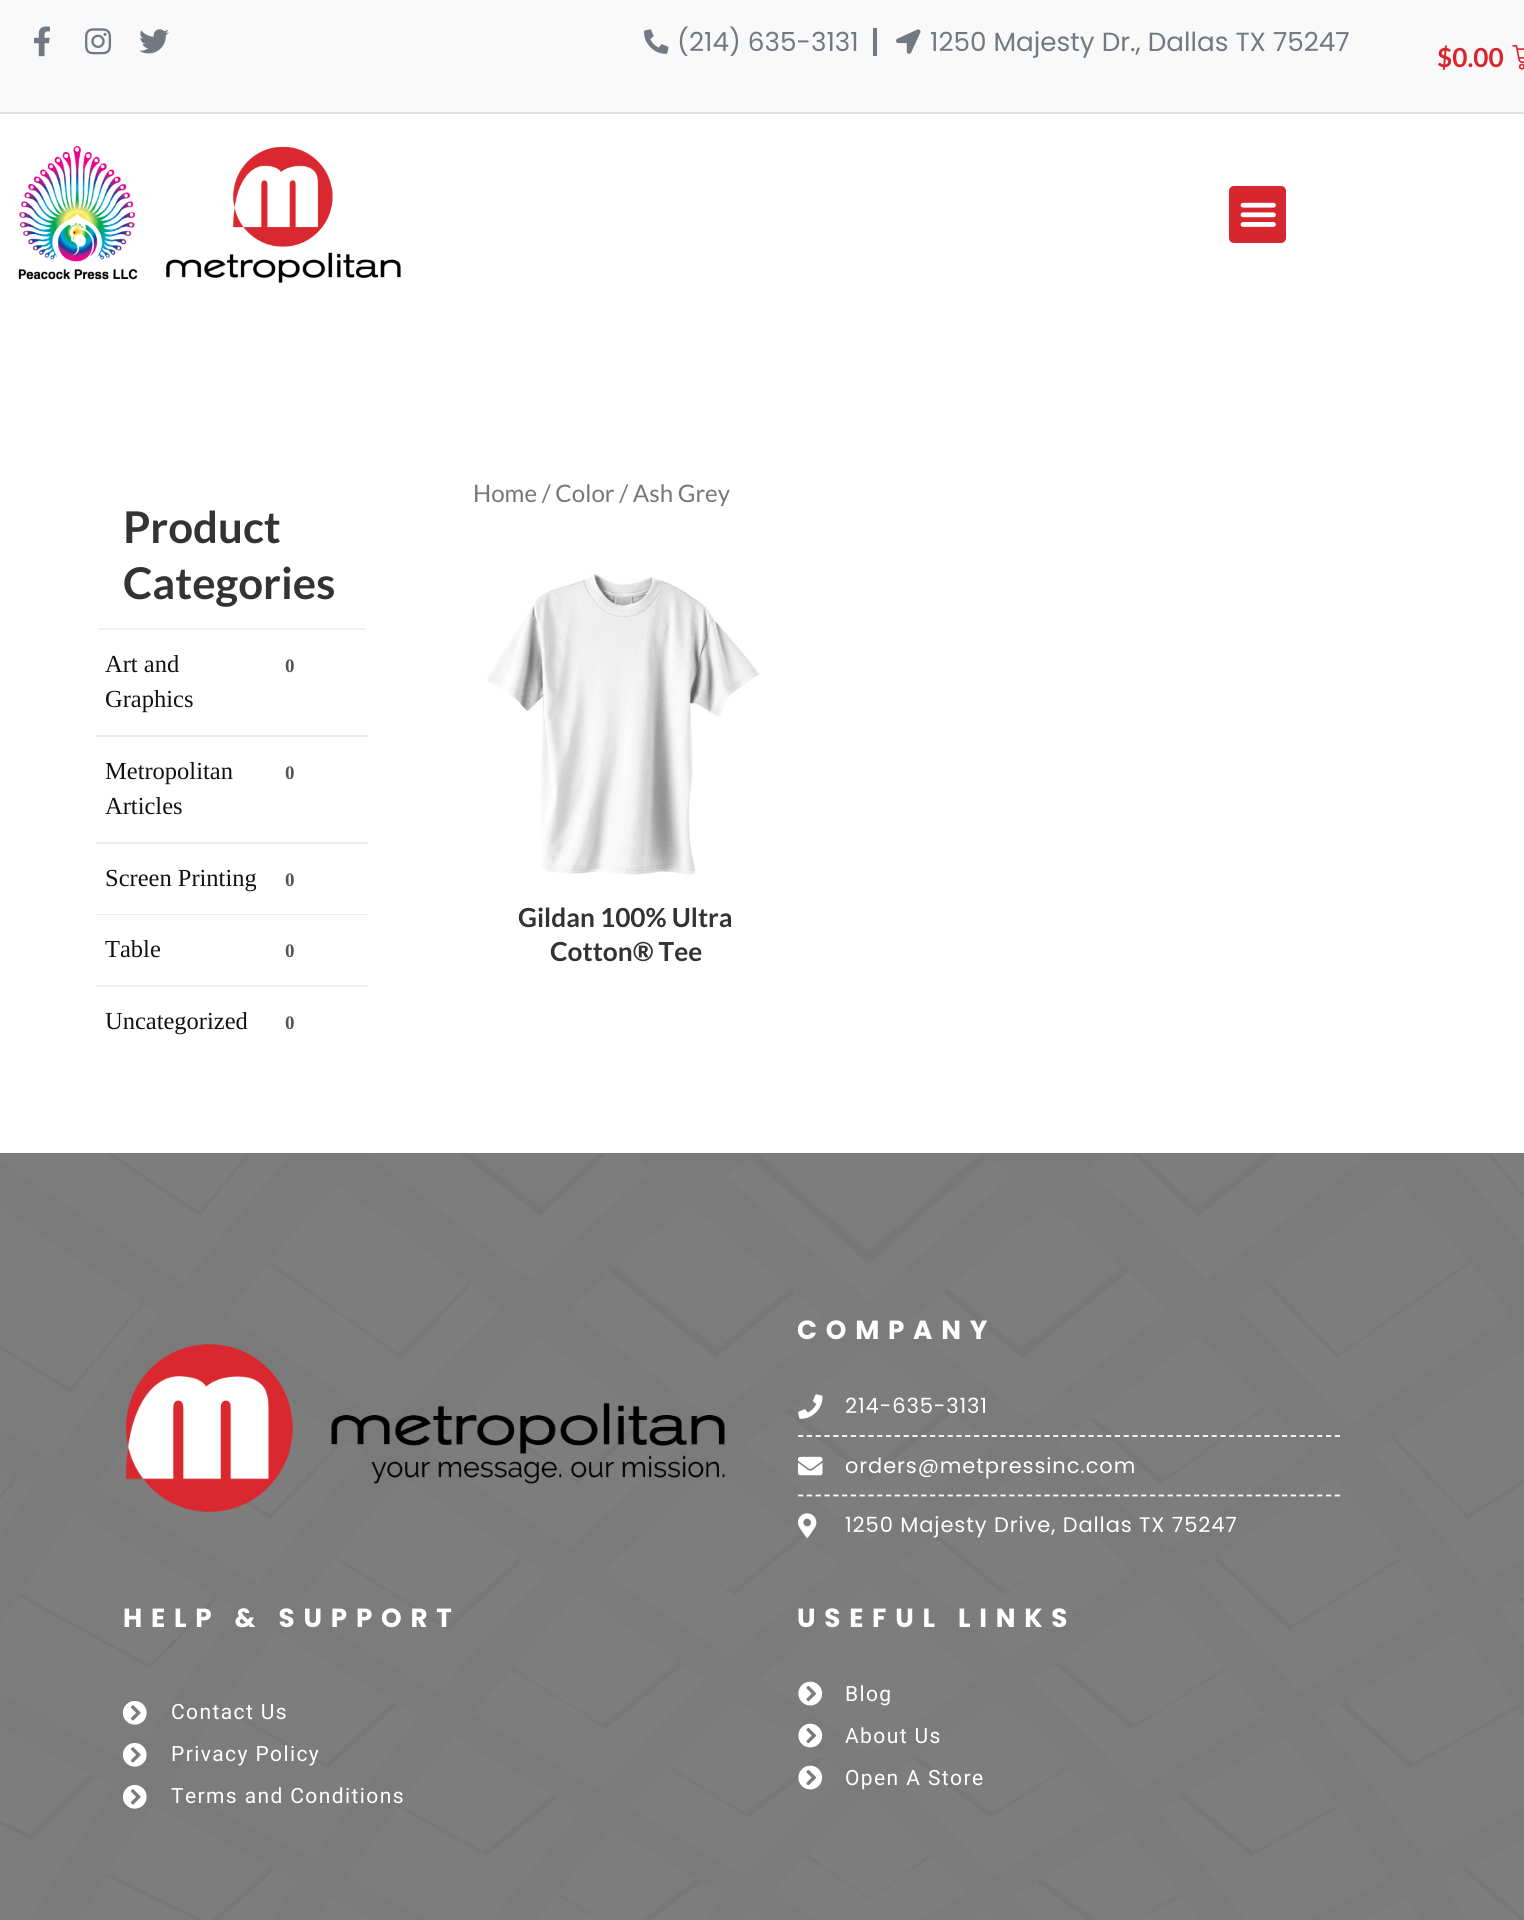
import math
import cairo

surface = cairo.ImageSurface(cairo.FORMAT_RGB24, 1524, 1920)
cr = cairo.Context(surface)
options = cairo.FontOptions()
options.set_hint_metrics(cairo.HINT_METRICS_OFF)
options.set_hint_style(cairo.HINT_STYLE_NONE)
cr.set_font_options(options)
cr.set_miter_limit(4)


def rgb(code):
    cr.set_source_rgb(*(v / 255 for v in bytes.fromhex(code[-6:])))


def tracked(x, y, s, letter, word):
    cr.move_to(x, y)
    for ch in s:
        cr.show_text(ch)
        cr.rel_move_to(letter + word * (ch == ' '), 0)


def rrect(x, y, w, h, r):
    cr.new_sub_path()
    for i, (u, v) in enumerate([(x + w - r, y + h - r), (x + r, y + h - r), (x + r, y + r), (x + w - r, y + r)]):
        cr.arc(u, v, r, i * math.pi / 2, (i + 1) * math.pi / 2)
    cr.close_path()


def image(path, x, y, w, h):
    cr.save()
    cr.set_source_surface(cairo.ImageSurface.create_from_png(path), x, y)
    cr.rectangle(x, y, w, h)
    cr.fill()
    cr.restore()


rgb("#f9f9f9")
cr.paint()
rgb("#dfe1e3")
cr.rectangle(0, 112, 1524, 2)
cr.fill()
image("img/1.png", 34, 26, 16, 31)
image("img/2.png", 85, 28, 27, 27)
image("img/3.png", 139, 29, 30, 25)
image("img/4.png", 644, 29, 25, 25)
rgb("#727982")
cr.rectangle(873, 28, 4, 28)
cr.fill()
image("img/5.png", 896, 29, 25, 25)
image("img/6.png", 1512, 45, 12, 25)
rgb("#ffffff")
cr.rectangle(0, 114, 1524, 1039)
cr.fill()
image("img/7.png", 18, 146, 383, 137)
rgb("#d8262f")
rrect(1229, 186, 57, 57, 5)
cr.fill()
image("img/8.png", 1240, 202, 36, 25)
for x, y, w, h, color in [
    (98, 628, 268, 2, "#f1f1f1"),
    (96, 735, 272, 2, "#eeeeee"),
    (96, 842, 272, 2, "#eeeeee"),
    (96, 914, 272, 1, "#eeeeee"),
    (96, 985, 272, 2, "#eeeeee"),
]:
    rgb(color)
    cr.rectangle(x, y, w, h)
    cr.fill()
image("img/9.png", 487, 574, 273, 301)
rgb("#767676")
cr.rectangle(0, 1153, 1524, 767)
cr.fill()
image("img/10.png", 0, 1153, 1524, 767)
image("img/11.png", 126, 1344, 599, 168)
image("img/12.png", 798, 1394, 25, 25)
cr.new_path()
cr.move_to(798, 1436)
cr.line_to(1340.5, 1436)
rgb("#ffffff")
cr.set_line_width(1.8)
cr.set_dash([5.25, 3.55])
cr.stroke()
image("img/13.png", 798, 1456, 25, 20)
cr.new_path()
cr.move_to(798, 1495.5)
cr.line_to(1340.5, 1495.5)
cr.stroke()
image("img/14.png", 798, 1513, 19, 25)
image("img/15.png", 122, 1700, 25, 25)
image("img/16.png", 122, 1742, 25, 25)
image("img/17.png", 122, 1784, 25, 25)
image("img/18.png", 798, 1681, 25, 25)
image("img/19.png", 798, 1723, 25, 25)
image("img/20.png", 798, 1765, 25, 25)
cr.select_font_face("Poppins")
cr.set_font_size(26.25)
rgb("#727982")
cr.move_to(677, 51)
cr.show_text("(214) 635-3131")
cr.move_to(930, 51)
cr.show_text("1250 Majesty Dr., Dallas TX 75247")
cr.select_font_face("Lato", cairo.FONT_SLANT_NORMAL, cairo.FONT_WEIGHT_BOLD)
rgb("#d8262f")
cr.move_to(1437, 67)
cr.show_text("$0.00")
cr.set_font_size(43.75)
rgb("#333333")
cr.move_to(123, 543)
cr.show_text("Product")
cr.move_to(123, 599)
cr.show_text("Categories")
cr.select_font_face("Liberation Serif")
cr.set_font_size(24.5)
rgb("#121212")
cr.move_to(105, 672)
cr.show_text("Art and")
cr.select_font_face("Liberation Serif", cairo.FONT_SLANT_NORMAL, cairo.FONT_WEIGHT_BOLD)
cr.set_font_size(19)
rgb("#555555")
cr.move_to(285, 672)
cr.show_text("0")
cr.select_font_face("Liberation Serif")
cr.set_font_size(24.5)
rgb("#121212")
cr.move_to(105, 707)
cr.show_text("Graphics")
cr.move_to(105, 779)
cr.show_text("Metropolitan")
cr.select_font_face("Liberation Serif", cairo.FONT_SLANT_NORMAL, cairo.FONT_WEIGHT_BOLD)
cr.set_font_size(19)
rgb("#555555")
cr.move_to(285, 779)
cr.show_text("0")
cr.select_font_face("Liberation Serif")
cr.set_font_size(24.5)
rgb("#121212")
cr.move_to(105, 814)
cr.show_text("Articles")
cr.move_to(105, 886)
cr.show_text("Screen Printing")
cr.select_font_face("Liberation Serif", cairo.FONT_SLANT_NORMAL, cairo.FONT_WEIGHT_BOLD)
cr.set_font_size(19)
rgb("#555555")
cr.move_to(285, 886)
cr.show_text("0")
cr.select_font_face("Liberation Serif")
cr.set_font_size(24.5)
rgb("#121212")
cr.move_to(105, 957)
cr.show_text("Table")
cr.select_font_face("Liberation Serif", cairo.FONT_SLANT_NORMAL, cairo.FONT_WEIGHT_BOLD)
cr.set_font_size(19)
rgb("#555555")
cr.move_to(285, 957)
cr.show_text("0")
cr.select_font_face("Liberation Serif")
cr.set_font_size(24.5)
rgb("#121212")
cr.move_to(105, 1029)
cr.show_text("Uncategorized")
cr.select_font_face("Liberation Serif", cairo.FONT_SLANT_NORMAL, cairo.FONT_WEIGHT_BOLD)
cr.set_font_size(19)
rgb("#555555")
cr.move_to(285, 1029)
cr.show_text("0")
cr.select_font_face("Lato")
cr.set_font_size(24.1)
rgb("#777777")
cr.move_to(473, 502)
cr.show_text("Home / Color / Ash Grey")
cr.select_font_face("Lato", cairo.FONT_SLANT_NORMAL, cairo.FONT_WEIGHT_BOLD)
cr.set_font_size(26.25)
rgb("#333333")
cr.move_to(518, 927)
cr.show_text("Gildan 100% Ultra")
cr.move_to(550, 961)
cr.show_text("Cotton® Tee")
cr.select_font_face("Poppins", cairo.FONT_SLANT_NORMAL, cairo.FONT_WEIGHT_BOLD)
rgb("#ffffff")
tracked(797, 1339, "COMPANY", 8.75, 0)
cr.select_font_face("Poppins")
cr.set_font_size(21)
for x, y, s in [
    (845, 1413, "214-635-3131"),
    (845, 1473, "orders@metpressinc.com"),
    (845, 1532, "1250 Majesty Drive, Dallas TX 75247"),
]:
    tracked(x, y, s, 0.9, 0)
cr.select_font_face("Poppins", cairo.FONT_SLANT_NORMAL, cairo.FONT_WEIGHT_BOLD)
cr.set_font_size(26.25)
tracked(123, 1627, "HELP & SUPPORT", 8.75, 0)
cr.select_font_face("Roboto")
cr.set_font_size(21)
for x, y, s in [
    (171, 1719, "Contact Us"),
    (171, 1761, "Privacy Policy"),
    (171, 1803, "Terms and Conditions"),
]:
    tracked(x, y, s, 1.4, 0)
cr.select_font_face("Poppins", cairo.FONT_SLANT_NORMAL, cairo.FONT_WEIGHT_BOLD)
cr.set_font_size(26.25)
tracked(797, 1627, "USEFUL LINKS", 8.75, 0)
cr.select_font_face("Roboto")
cr.set_font_size(21)
for x, y, s in [
    (845, 1701, "Blog"),
    (845, 1743, "About Us"),
    (845, 1785, "Open A Store"),
]:
    tracked(x, y, s, 1.4, 0)
surface.write_to_png("page.png")
